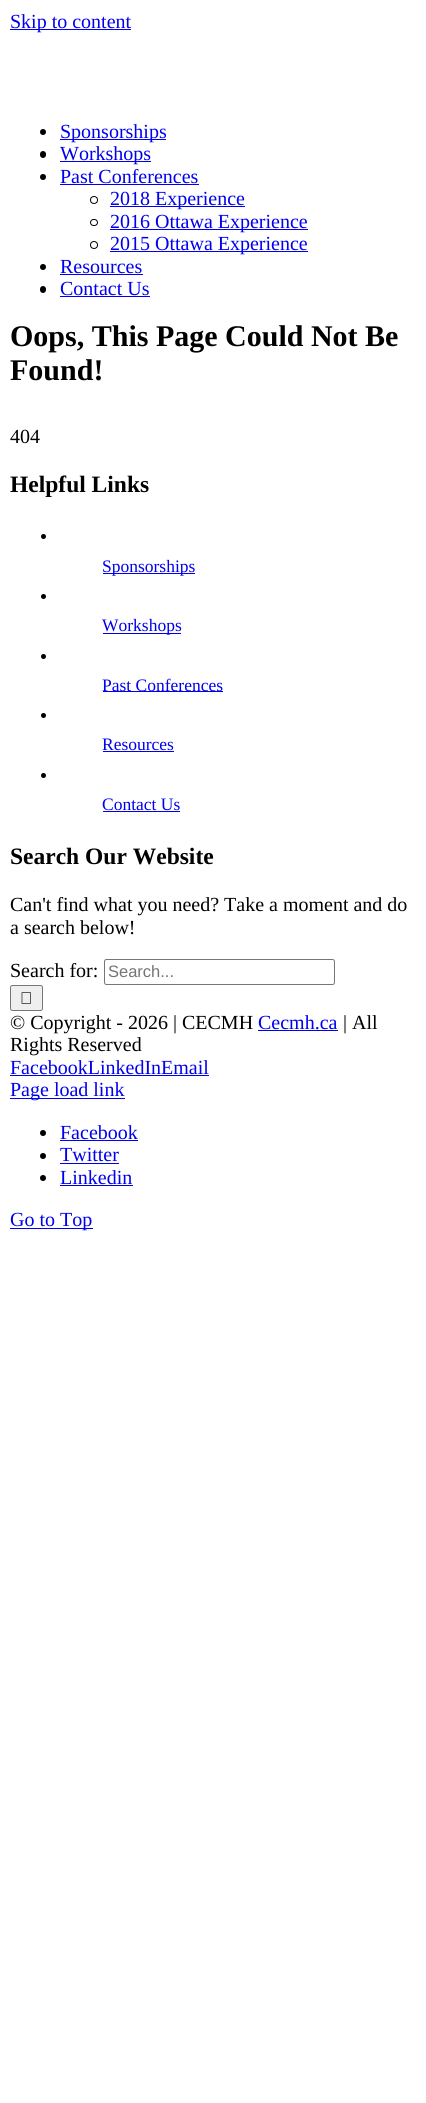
import math
import cairo

surface = cairo.ImageSurface(cairo.FORMAT_RGB24, 426, 2103)
cr = cairo.Context(surface)
options = cairo.FontOptions()
options.set_hint_metrics(cairo.HINT_METRICS_OFF)
options.set_hint_style(cairo.HINT_STYLE_NONE)
cr.set_font_options(options)
cr.set_miter_limit(4)


def rgb(code):
    cr.set_source_rgb(*(v / 255 for v in bytes.fromhex(code[-6:])))


def rrect(x, y, w, h, r):
    cr.new_sub_path()
    for i, (u, v) in enumerate([(x + w - r, y + h - r), (x + r, y + h - r), (x + r, y + r), (x + w - r, y + r)]):
        cr.arc(u, v, r, i * math.pi / 2, (i + 1) * math.pi / 2)
    cr.close_path()


def image(path, x, y, w, h):
    cr.save()
    cr.set_source_surface(cairo.ImageSurface.create_from_png(path), x, y)
    cr.rectangle(x, y, w, h)
    cr.fill()
    cr.restore()


rgb("#ffffff")
cr.paint()
rgb("#0000ee")
cr.rectangle(10, 29, 121, 1)
cr.fill()
rgb("#000000")
cr.arc(43, 132, 3, 0, 2 * math.pi)
cr.fill()
rgb("#0000ee")
cr.rectangle(60, 139, 106, 1)
cr.fill()
rgb("#000000")
rrect(40, 151, 6, 7, 3)
cr.fill()
rgb("#0000ee")
cr.rectangle(60, 161, 91, 1)
cr.fill()
rgb("#000000")
cr.arc(43, 177, 3, 0, 2 * math.pi)
cr.fill()
rgb("#0000ee")
cr.rectangle(60, 184, 139, 1)
cr.fill()
cr.arc(94, 200, 3.5, 0, 2 * math.pi)
rgb("#000000")
cr.set_line_width(1)
cr.stroke()
rgb("#0000ee")
cr.rectangle(110, 206, 135, 1)
cr.fill()
rrect(90.5, 219.5, 7, 6, 3)
rgb("#000000")
cr.stroke()
rgb("#0000ee")
cr.rectangle(110, 229, 198, 1)
cr.fill()
cr.arc(94, 245, 3.5, 0, 2 * math.pi)
rgb("#000000")
cr.stroke()
rgb("#0000ee")
cr.rectangle(110, 251, 198, 1)
cr.fill()
rgb("#000000")
cr.arc(43, 267, 3, 0, 2 * math.pi)
cr.fill()
rgb("#0000ee")
cr.rectangle(60, 274, 83, 1)
cr.fill()
rgb("#000000")
rrect(40, 286, 6, 7, 3)
cr.fill()
rgb("#0000ee")
cr.rectangle(60, 296, 90, 1)
cr.fill()
rgb("#000000")
cr.arc(43.5, 536.5, 2.5, 0, 2 * math.pi)
cr.fill()
rgb("#0000ee")
cr.rectangle(103, 573, 92, 1)
cr.fill()
rgb("#000000")
cr.arc(43.5, 596.5, 2.5, 0, 2 * math.pi)
cr.fill()
rgb("#0000ee")
cr.rectangle(103, 633, 78, 1)
cr.fill()
rgb("#000000")
cr.arc(43.5, 656.5, 2.5, 0, 2 * math.pi)
cr.fill()
rgb("#0000ee")
cr.rectangle(103, 691, 120, 1)
cr.fill()
rgb("#000000")
cr.arc(43.5, 715.5, 2.5, 0, 2 * math.pi)
cr.fill()
rgb("#0000ee")
cr.rectangle(103, 751, 71, 1)
cr.fill()
rgb("#000000")
cr.arc(43.5, 775.5, 2.5, 0, 2 * math.pi)
cr.fill()
rgb("#0000ee")
cr.rectangle(103, 811, 77, 1)
cr.fill()
rrect(104.5, 959.5, 230, 25, 2)
rgb("#767676")
cr.stroke()
rgb("#efefef")
rrect(10.5, 985.5, 32, 25, 2)
cr.fill_preserve()
rgb("#767676")
cr.stroke()
image("img/1.png", 21, 992, 10, 12)
for x, y, w, h, color in [
    (258, 1030, 80, 1, "#0000ee"),
    (10, 1075, 199, 1, "#0000ee"),
    (10, 1098, 115, 1, "#0000ee"),
]:
    rgb(color)
    cr.rectangle(x, y, w, h)
    cr.fill()
rgb("#000000")
cr.arc(43, 1133, 3, 0, 2 * math.pi)
cr.fill()
rgb("#0000ee")
cr.rectangle(60, 1140, 78, 1)
cr.fill()
rgb("#000000")
cr.arc(43, 1156, 3, 0, 2 * math.pi)
cr.fill()
rgb("#0000ee")
cr.rectangle(60, 1163, 59, 1)
cr.fill()
rgb("#000000")
cr.arc(43, 1178, 3, 0, 2 * math.pi)
cr.fill()
rgb("#0000ee")
cr.rectangle(60, 1185, 73, 1)
cr.fill()
cr.rectangle(10, 1228, 83, 1)
cr.fill()
cr.select_font_face("Liberation Serif")
cr.set_font_size(20)
for x, y, s in [
    (10, 28, "Skip to content"),
    (60, 138, "Sponsorships"),
    (60, 160, "Workshops"),
    (60, 183, "Past Conferences"),
    (110, 205, "2018 Experience"),
    (110, 228, "2016 Ottawa Experience"),
    (110, 250, "2015 Ottawa Experience"),
    (60, 273, "Resources"),
    (60, 295, "Contact Us"),
]:
    cr.move_to(x, y)
    cr.show_text(s)
cr.select_font_face("Liberation Serif", cairo.FONT_SLANT_NORMAL, cairo.FONT_WEIGHT_BOLD)
cr.set_font_size(30)
rgb("#000000")
cr.move_to(10, 346)
cr.show_text("Oops, This Page Could Not Be")
cr.move_to(10, 380)
cr.show_text("Found!")
cr.select_font_face("Liberation Serif")
cr.set_font_size(20)
cr.move_to(10, 443)
cr.show_text("404")
cr.select_font_face("Liberation Serif", cairo.FONT_SLANT_NORMAL, cairo.FONT_WEIGHT_BOLD)
cr.set_font_size(23.5)
cr.move_to(10, 492)
cr.show_text("Helpful Links")
cr.select_font_face("Liberation Serif")
cr.set_font_size(17.5)
rgb("#0000ee")
for x, y, s in [
    (102, 572, "Sponsorships"),
    (102, 631, "Workshops"),
    (102, 691, "Past Conferences"),
    (102, 750, "Resources"),
    (102, 810, "Contact Us"),
]:
    cr.move_to(x, y)
    cr.show_text(s)
cr.select_font_face("Liberation Serif", cairo.FONT_SLANT_NORMAL, cairo.FONT_WEIGHT_BOLD)
cr.set_font_size(23.5)
rgb("#000000")
cr.move_to(10, 864)
cr.show_text("Search Our Website")
cr.select_font_face("Liberation Serif")
cr.set_font_size(20)
for x, y, s in [
    (10, 911, "Can't find what you need? Take a moment and do"),
    (10, 934, "a search below!"),
    (10, 977, "Search for:"),
]:
    cr.move_to(x, y)
    cr.show_text(s)
cr.select_font_face("Liberation Sans")
cr.set_font_size(16.5)
rgb("#757575")
cr.move_to(108, 977)
cr.show_text("Search...")
cr.select_font_face("Liberation Serif")
cr.set_font_size(20)
rgb("#000000")
cr.move_to(10, 1029)
cr.show_text("© Copyright - 2026 | CECMH")
rgb("#0000ee")
cr.move_to(258, 1029)
cr.show_text("Cecmh.ca")
rgb("#000000")
cr.move_to(343, 1029)
cr.show_text("| All")
cr.move_to(10, 1051)
cr.show_text("Rights Reserved")
rgb("#0000ee")
for x, y, s in [
    (10, 1074, "FacebookLinkedInEmail"),
    (10, 1096, "Page load link"),
    (60, 1139, "Facebook"),
    (60, 1161, "Twitter"),
    (60, 1184, "Linkedin"),
    (10, 1226, "Go to Top"),
]:
    cr.move_to(x, y)
    cr.show_text(s)
surface.write_to_png("page.png")
